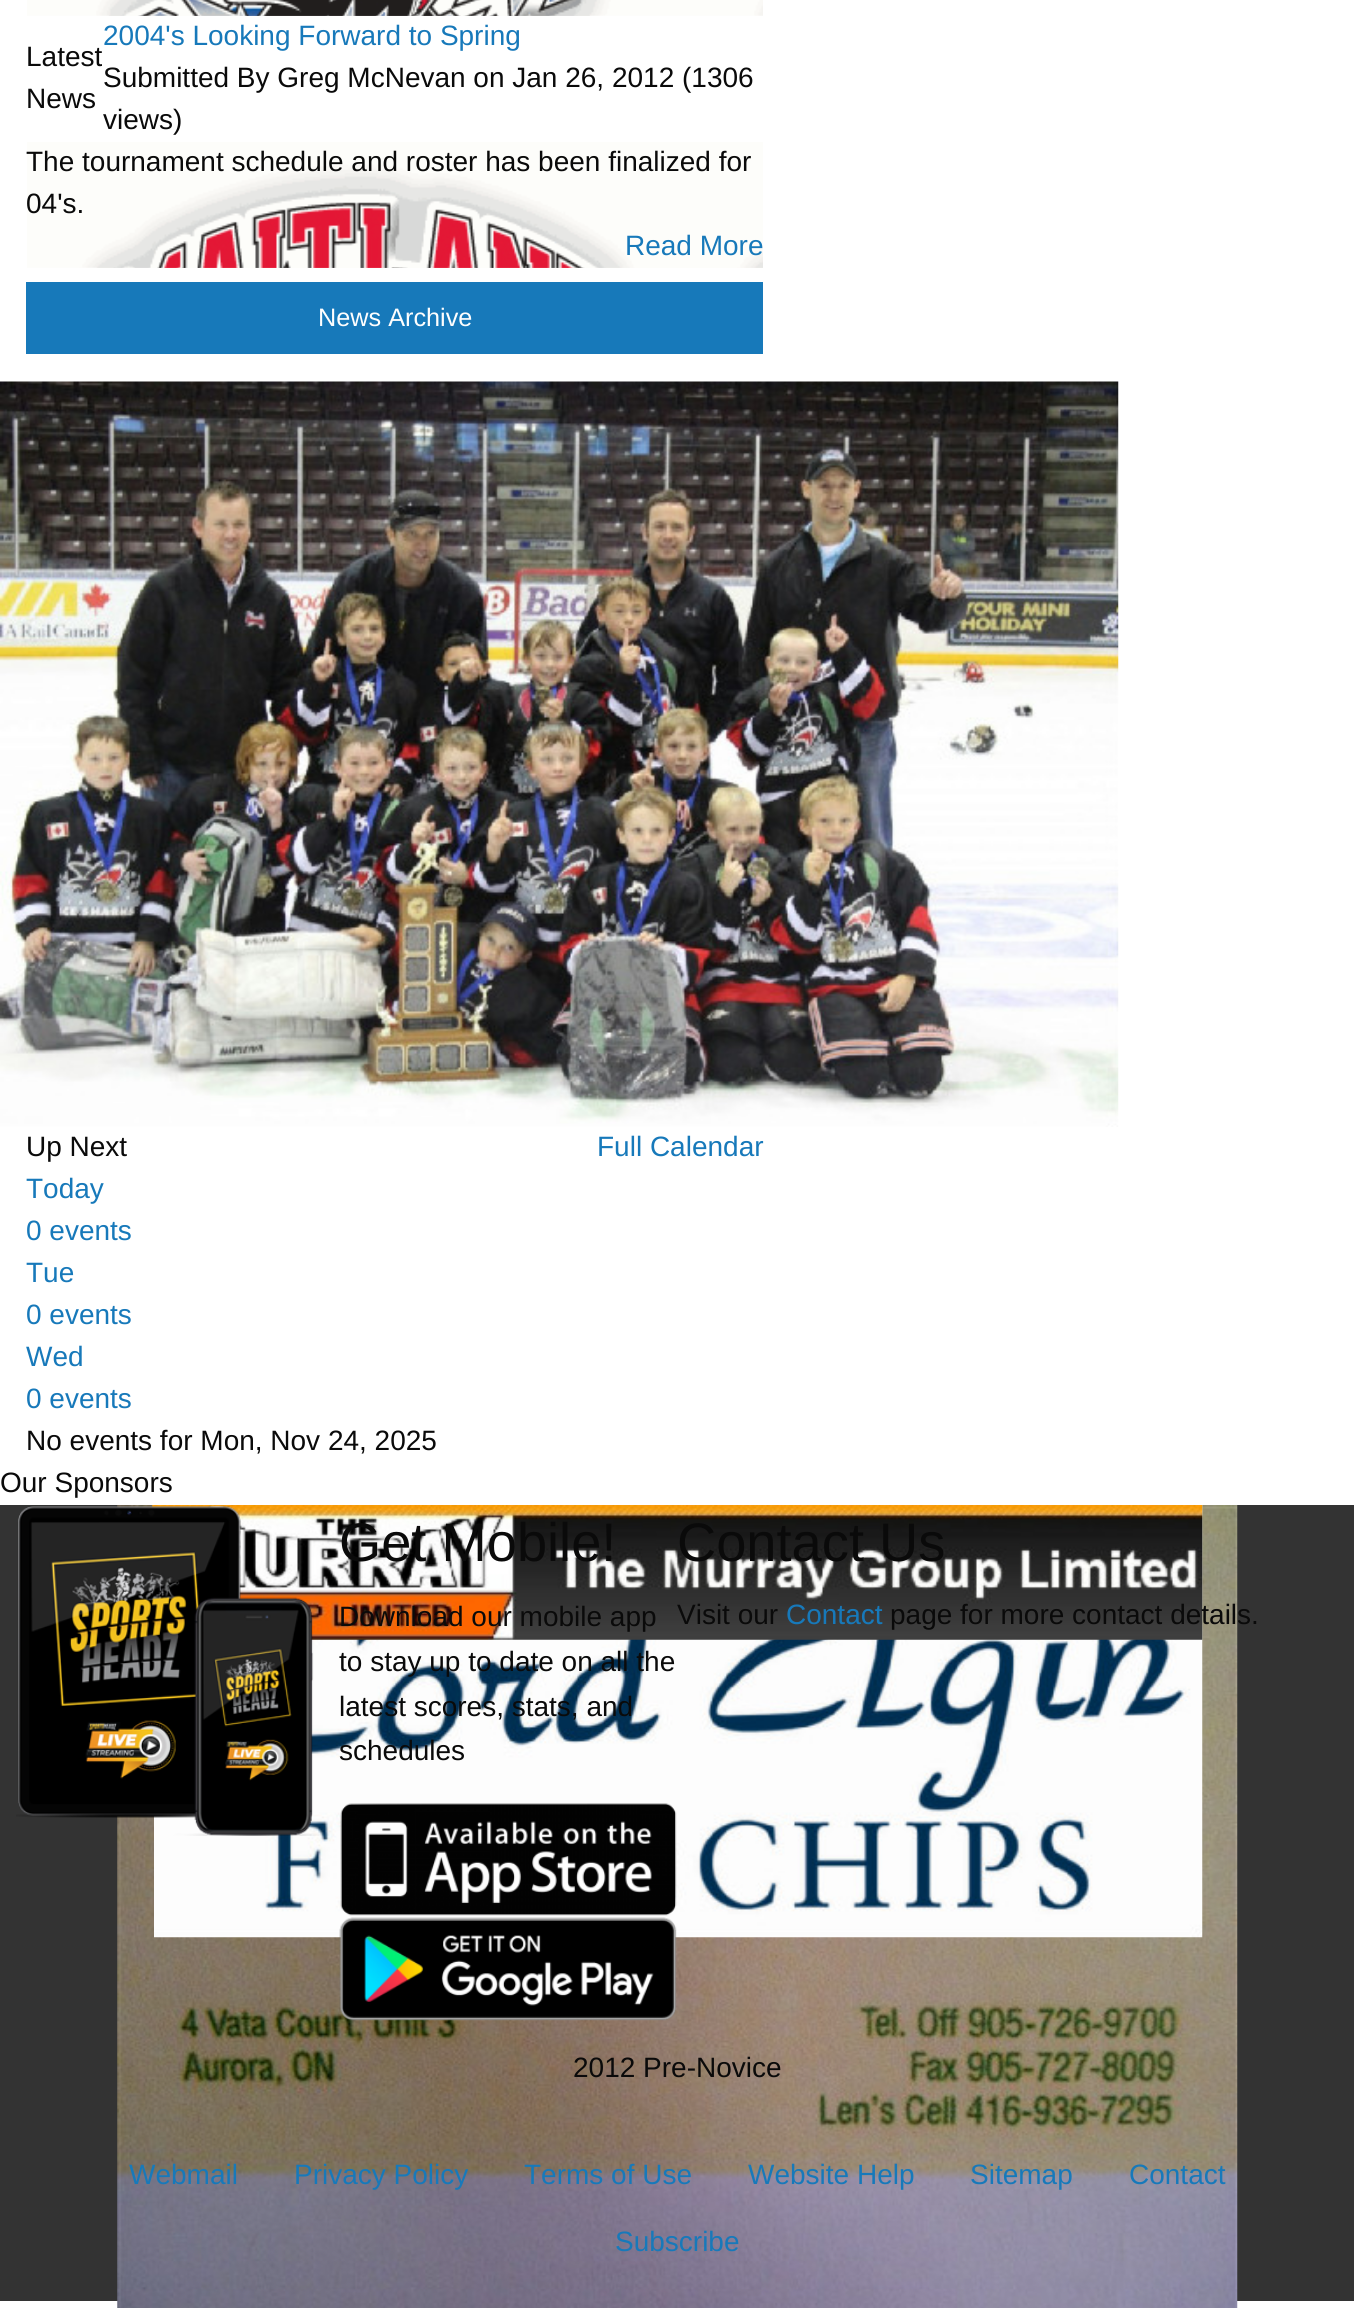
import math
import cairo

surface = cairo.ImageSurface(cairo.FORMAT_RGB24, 1354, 2308)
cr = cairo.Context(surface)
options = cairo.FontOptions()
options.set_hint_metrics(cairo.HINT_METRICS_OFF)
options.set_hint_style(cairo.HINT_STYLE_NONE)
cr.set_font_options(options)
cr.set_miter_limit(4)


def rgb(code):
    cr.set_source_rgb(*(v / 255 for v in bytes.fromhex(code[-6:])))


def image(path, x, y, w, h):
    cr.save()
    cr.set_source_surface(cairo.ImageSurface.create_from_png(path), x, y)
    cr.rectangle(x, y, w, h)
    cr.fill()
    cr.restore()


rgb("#ffffff")
cr.paint()
image("img/1.png", 27, 0, 736, 16)
image("img/2.png", 109, 15, 481, 1)
image("img/3.png", 27, 142, 736, 126)
image("img/4.png", 97, 267, 666, 1)
rgb("#1779ba")
cr.rectangle(26, 282, 737, 72)
cr.fill()
image("img/5.png", 0, 381, 1119, 746)
rgb("#333333")
cr.rectangle(0, 1505, 1354, 796)
cr.fill()
image("img/6.png", 117, 1505, 1121, 803)
image("img/8.png", 154, 1505, 1049, 433)
image("img/7.png", 152, 1505, 1051, 135)
image("img/9.png", 16, 1505, 303, 331)
image("img/10.png", 340, 1803, 337, 113)
image("img/11.png", 339, 1917, 338, 104)
cr.select_font_face("Liberation Sans")
cr.set_font_size(28)
rgb("#0a0a0a")
cr.move_to(26, 66)
cr.show_text("Latest")
cr.move_to(26, 108)
cr.show_text("News")
rgb("#1779ba")
cr.move_to(103, 45)
cr.show_text("2004's Looking Forward to Spring")
rgb("#0a0a0a")
for x, y, s in [
    (103, 87, "Submitted By Greg McNevan on Jan 26, 2012 (1306"),
    (103, 129, "views)"),
    (26, 171, "The tournament schedule and roster has been finalized for"),
    (26, 213, "04's."),
]:
    cr.move_to(x, y)
    cr.show_text(s)
rgb("#1779ba")
cr.move_to(625, 255)
cr.show_text("Read More")
cr.set_font_size(25.25)
rgb("#fefefe")
cr.move_to(318, 326)
cr.show_text("News Archive")
cr.set_font_size(28)
rgb("#0a0a0a")
cr.move_to(26, 1156)
cr.show_text("Up Next")
rgb("#1779ba")
for x, y, s in [
    (597, 1156, "Full Calendar"),
    (26, 1198, "Today"),
    (26, 1240, "0 events"),
    (26, 1282, "Tue"),
    (26, 1324, "0 events"),
    (26, 1366, "Wed"),
    (26, 1408, "0 events"),
]:
    cr.move_to(x, y)
    cr.show_text(s)
rgb("#0a0a0a")
cr.move_to(26, 1450)
cr.show_text("No events for Mon, Nov 24, 2025")
cr.move_to(0, 1492)
cr.show_text("Our Sponsors")
cr.set_font_size(54.25)
cr.move_to(339, 1561)
cr.show_text("Get Mobile!")
cr.set_font_size(28)
for x, y, s in [
    (339, 1626, "Download our mobile app"),
    (339, 1671, "to stay up to date on all the"),
    (339, 1716, "latest scores, stats, and"),
    (339, 1760, "schedules"),
]:
    cr.move_to(x, y)
    cr.show_text(s)
cr.set_font_size(54.25)
cr.move_to(677, 1561)
cr.show_text("Contact Us")
cr.set_font_size(28)
cr.move_to(677, 1624)
cr.show_text("Visit our")
rgb("#1779ba")
cr.move_to(786, 1624)
cr.show_text("Contact")
rgb("#0a0a0a")
cr.move_to(890, 1624)
cr.show_text("page for more contact details.")
cr.move_to(573, 2077)
cr.show_text("2012 Pre-Novice")
rgb("#1779ba")
for x, y, s in [
    (129, 2184, "Webmail"),
    (294, 2184, "Privacy Policy"),
    (524, 2184, "Terms of Use"),
    (748, 2184, "Website Help"),
    (970, 2184, "Sitemap"),
    (1129, 2184, "Contact"),
    (615, 2251, "Subscribe"),
]:
    cr.move_to(x, y)
    cr.show_text(s)
surface.write_to_png("page.png")
